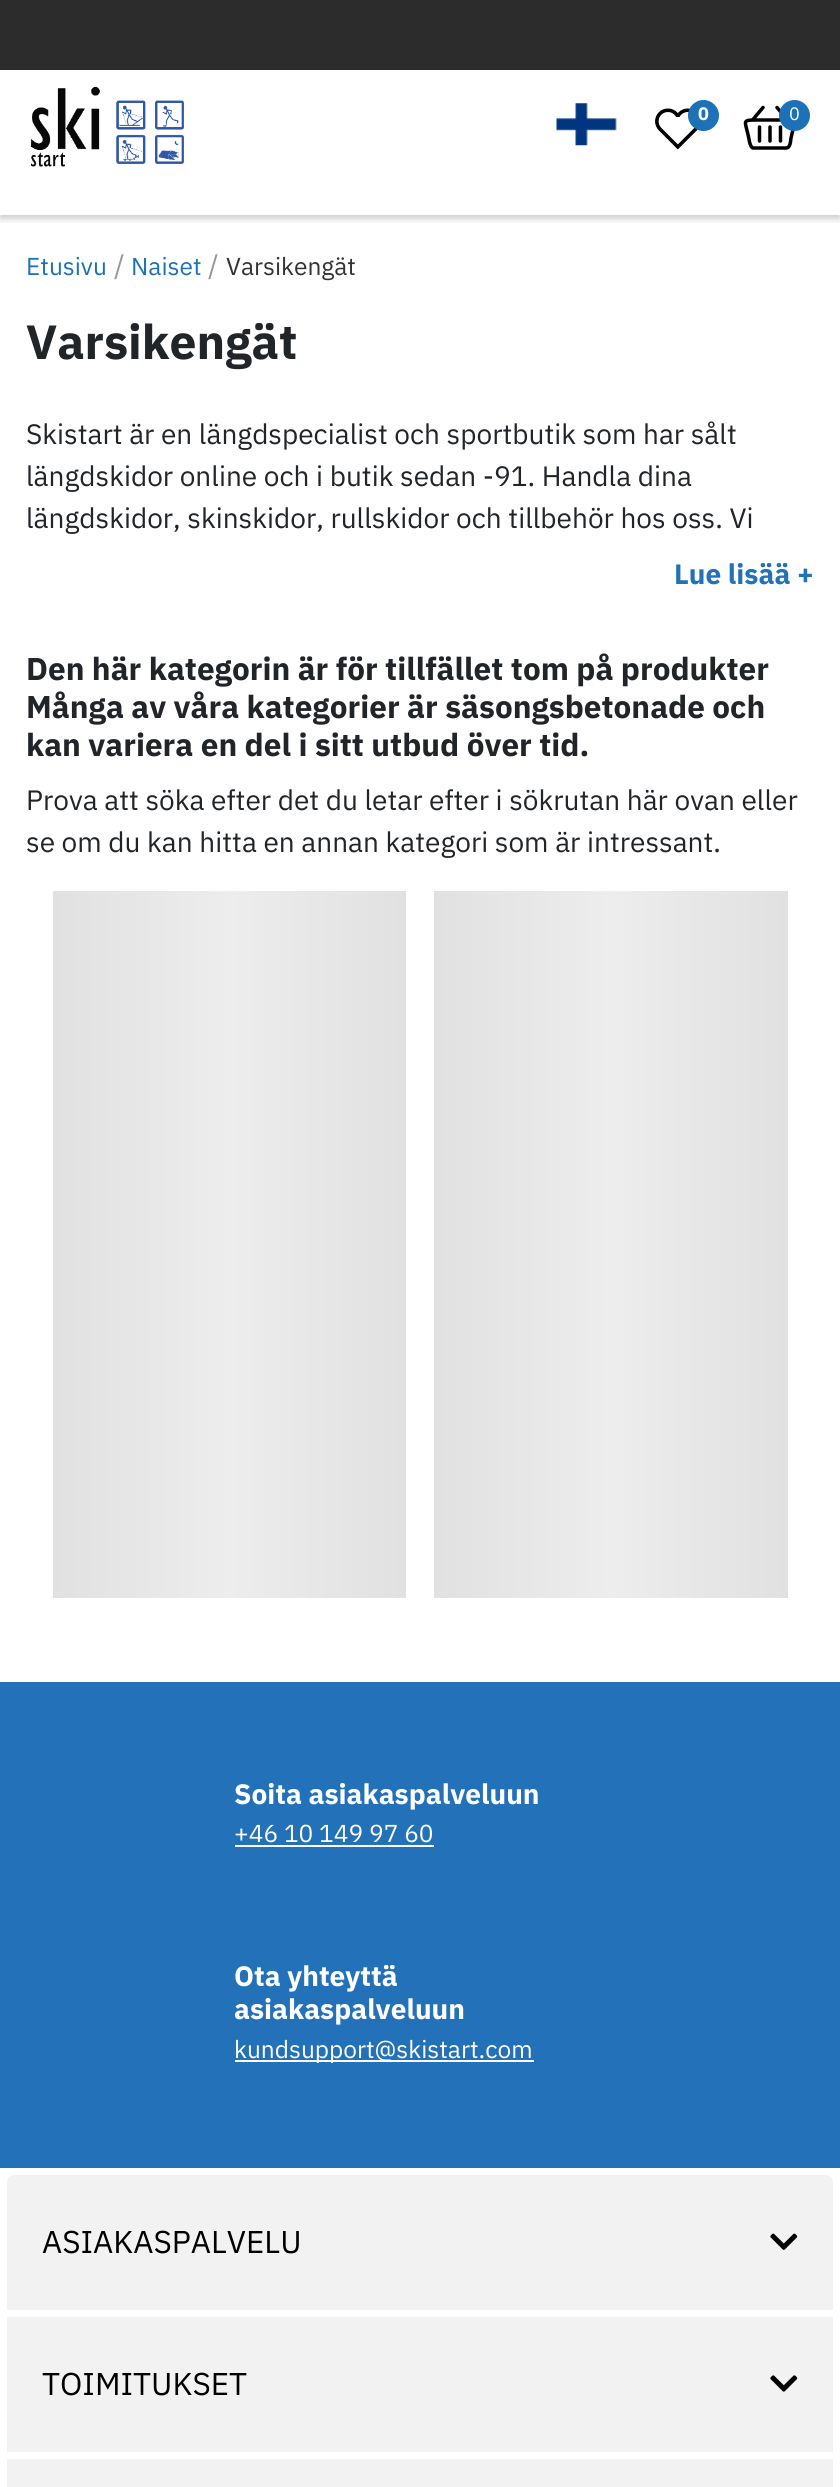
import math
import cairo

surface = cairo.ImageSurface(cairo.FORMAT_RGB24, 840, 2487)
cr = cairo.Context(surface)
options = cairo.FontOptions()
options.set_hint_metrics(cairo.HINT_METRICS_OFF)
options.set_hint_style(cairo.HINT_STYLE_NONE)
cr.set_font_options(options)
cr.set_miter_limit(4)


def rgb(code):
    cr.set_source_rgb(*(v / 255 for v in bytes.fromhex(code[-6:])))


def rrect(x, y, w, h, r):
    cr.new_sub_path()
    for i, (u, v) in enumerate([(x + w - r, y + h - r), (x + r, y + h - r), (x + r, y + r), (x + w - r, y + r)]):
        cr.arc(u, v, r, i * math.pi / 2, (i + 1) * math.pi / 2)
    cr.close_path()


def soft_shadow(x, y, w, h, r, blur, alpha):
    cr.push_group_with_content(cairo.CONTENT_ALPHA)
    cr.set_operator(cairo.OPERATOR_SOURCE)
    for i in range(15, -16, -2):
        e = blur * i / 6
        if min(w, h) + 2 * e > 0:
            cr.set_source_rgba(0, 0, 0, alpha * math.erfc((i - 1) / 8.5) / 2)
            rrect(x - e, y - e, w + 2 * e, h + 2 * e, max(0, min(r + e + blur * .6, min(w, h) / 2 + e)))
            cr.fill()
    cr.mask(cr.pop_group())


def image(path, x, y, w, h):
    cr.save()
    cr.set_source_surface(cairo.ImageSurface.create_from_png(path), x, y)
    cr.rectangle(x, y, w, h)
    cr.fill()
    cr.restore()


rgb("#ffffff")
cr.paint()
rgb("#2c2c2d")
cr.rectangle(0, 0, 840, 70)
cr.fill()
cr.save()
cr.rectangle(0, 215, 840, 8)
cr.clip()
rgb("#000000")
soft_shadow(0, 74, 840, 145, 0, 3.5, 0.2)
cr.restore()
image("img/1.png", 31, 86, 153, 81)
image("img/2.png", 556, 103, 61, 43)
image("img/3.png", 655, 108, 43, 42)
rgb("#1d71b8")
cr.arc(703.5, 115.5, 15.5, 0, 2 * math.pi)
cr.fill()
cr.new_path()
cr.move_to(752.5, 120)
cr.line_to(763, 107.5)
cr.move_to(787.5, 120)
cr.line_to(777, 107.5)
cr.move_to(786, 148)
cr.line_to(753, 148)
cr.curve_to(749.5, 147, 749, 137.5, 748, 134.5)
cr.curve_to(745, 121, 742, 120, 756, 120)
cr.line_to(792, 120)
cr.curve_to(795.5, 121, 794, 125, 793.5, 127.5)
cr.line_to(791, 138)
cr.curve_to(790.5, 141, 790.5, 148, 786, 148)
cr.move_to(759.5, 127)
cr.line_to(759.5, 141)
cr.move_to(770, 127)
cr.line_to(770, 141)
cr.move_to(780.5, 127)
cr.line_to(780.5, 141)
rgb("#000000")
cr.set_line_width(3.5)
cr.set_line_cap(cairo.LINE_CAP_ROUND)
cr.set_line_join(cairo.LINE_JOIN_ROUND)
cr.stroke()
rgb("#1d71b8")
cr.arc(794.5, 115.5, 15.5, 0, 2 * math.pi)
cr.fill()
gradient = cairo.LinearGradient(53, 1068, 406, 1068)
gradient.add_color_stop_rgba(0, 0.882, 0.882, 0.882, 1)
gradient.add_color_stop_rgba(0.5, 0.929, 0.929, 0.929, 1)
gradient.add_color_stop_rgba(1, 0.882, 0.882, 0.882, 1)
cr.set_source(gradient)
cr.rectangle(53, 891, 353, 353)
cr.fill()
gradient = cairo.LinearGradient(434, 1068, 788, 1068)
gradient.add_color_stop_rgba(0, 0.882, 0.882, 0.882, 1)
gradient.add_color_stop_rgba(0.5, 0.929, 0.929, 0.929, 1)
gradient.add_color_stop_rgba(1, 0.882, 0.882, 0.882, 1)
cr.set_source(gradient)
cr.rectangle(434, 891, 354, 353)
cr.fill()
gradient = cairo.LinearGradient(53, 1421, 406, 1421)
gradient.add_color_stop_rgba(0, 0.882, 0.882, 0.882, 1)
gradient.add_color_stop_rgba(0.5, 0.929, 0.929, 0.929, 1)
gradient.add_color_stop_rgba(1, 0.882, 0.882, 0.882, 1)
cr.set_source(gradient)
cr.rectangle(53, 1244, 353, 354)
cr.fill()
gradient = cairo.LinearGradient(434, 1421, 788, 1421)
gradient.add_color_stop_rgba(0, 0.882, 0.882, 0.882, 1)
gradient.add_color_stop_rgba(0.5, 0.929, 0.929, 0.929, 1)
gradient.add_color_stop_rgba(1, 0.882, 0.882, 0.882, 1)
cr.set_source(gradient)
cr.rectangle(434, 1244, 354, 354)
cr.fill()
for x, y, w, h, color in [
    (0, 1682, 840, 486, "#2372b9"),
    (235, 1845, 199, 2, "#ffffff"),
    (235, 2060, 299, 2, "#ffffff"),
]:
    rgb(color)
    cr.rectangle(x, y, w, h)
    cr.fill()
rgb("#f2f2f2")
cr.new_path()
cr.move_to(14, 2175)
cr.line_to(826, 2175)
cr.curve_to(830, 2175, 833, 2178, 833, 2182)
cr.line_to(833, 2310)
cr.line_to(7, 2310)
cr.line_to(7, 2182)
cr.curve_to(7, 2178, 10, 2175, 14, 2175)
cr.close_path()
cr.fill()
image("img/4.png", 770, 2233, 28, 17)
cr.rectangle(7, 2317, 826, 135)
cr.fill()
image("img/5.png", 770, 2375, 28, 17)
cr.rectangle(7, 2459, 826, 28)
cr.fill()
cr.select_font_face("IBM Plex Sans", cairo.FONT_SLANT_NORMAL, cairo.FONT_WEIGHT_BOLD)
cr.set_font_size(18)
rgb("#ffffff")
cr.move_to(698, 120)
cr.show_text("0")
cr.select_font_face("IBM Plex Sans")
cr.move_to(789, 120)
cr.show_text("0")
cr.set_font_size(24.5)
rgb("#1d71b8")
cr.move_to(26, 275)
cr.show_text("Etusivu")
cr.set_font_size(28)
rgb("#979797")
cr.move_to(114, 275)
cr.show_text("/")
cr.set_font_size(24.5)
rgb("#1d71b8")
cr.move_to(131, 275)
cr.show_text("Naiset")
cr.set_font_size(28)
rgb("#979797")
cr.move_to(208, 275)
cr.show_text("/")
cr.set_font_size(24.5)
rgb("#333333")
cr.move_to(226, 275)
cr.show_text("Varsikengät")
cr.select_font_face("IBM Plex Sans", cairo.FONT_SLANT_NORMAL, cairo.FONT_WEIGHT_BOLD)
cr.set_font_size(48)
rgb("#212529")
cr.move_to(26, 359)
cr.show_text("Varsikengät")
cr.select_font_face("IBM Plex Sans")
cr.set_font_size(28)
for x, y, s in [
    (26, 444, "Skistart är en längdspecialist och sportbutik som har sålt"),
    (26, 486, "längdskidor online och i butik sedan -91. Handla dina"),
    (26, 528, "längdskidor, skinskidor, rullskidor och tillbehör hos oss. Vi"),
]:
    cr.move_to(x, y)
    cr.show_text(s)
cr.select_font_face("IBM Plex Sans", cairo.FONT_SLANT_NORMAL, cairo.FONT_WEIGHT_BOLD)
rgb("#2372b9")
cr.move_to(674, 584)
cr.show_text("Lue lisää +")
cr.set_font_size(31.5)
rgb("#212529")
for x, y, s in [
    (26, 680, "Den här kategorin är för tillfället tom på produkter"),
    (26, 718, "Många av våra kategorier är säsongsbetonade och"),
    (26, 756, "kan variera en del i sitt utbud över tid."),
]:
    cr.move_to(x, y)
    cr.show_text(s)
cr.select_font_face("IBM Plex Sans")
cr.set_font_size(28)
cr.move_to(26, 810)
cr.show_text("Prova att söka efter det du letar efter i sökrutan här ovan eller")
cr.move_to(26, 852)
cr.show_text("se om du kan hitta en annan kategori som är intressant.")
cr.select_font_face("IBM Plex Sans", cairo.FONT_SLANT_NORMAL, cairo.FONT_WEIGHT_BOLD)
rgb("#ffffff")
cr.move_to(234, 1804)
cr.show_text("Soita asiakaspalveluun")
cr.select_font_face("IBM Plex Sans")
cr.set_font_size(24.5)
cr.move_to(234, 1842)
cr.show_text("+46 10 149 97 60")
cr.select_font_face("IBM Plex Sans", cairo.FONT_SLANT_NORMAL, cairo.FONT_WEIGHT_BOLD)
cr.set_font_size(28)
cr.move_to(234, 1986)
cr.show_text("Ota yhteyttä")
cr.move_to(234, 2019)
cr.show_text("asiakaspalveluun")
cr.select_font_face("IBM Plex Sans")
cr.set_font_size(24.5)
cr.move_to(234, 2058)
cr.show_text("kundsupport@skistart.com")
cr.set_font_size(31.5)
rgb("#000000")
cr.move_to(42, 2253)
cr.show_text("ASIAKASPALVELU")
cr.move_to(42, 2395)
cr.show_text("TOIMITUKSET")
surface.write_to_png("page.png")
